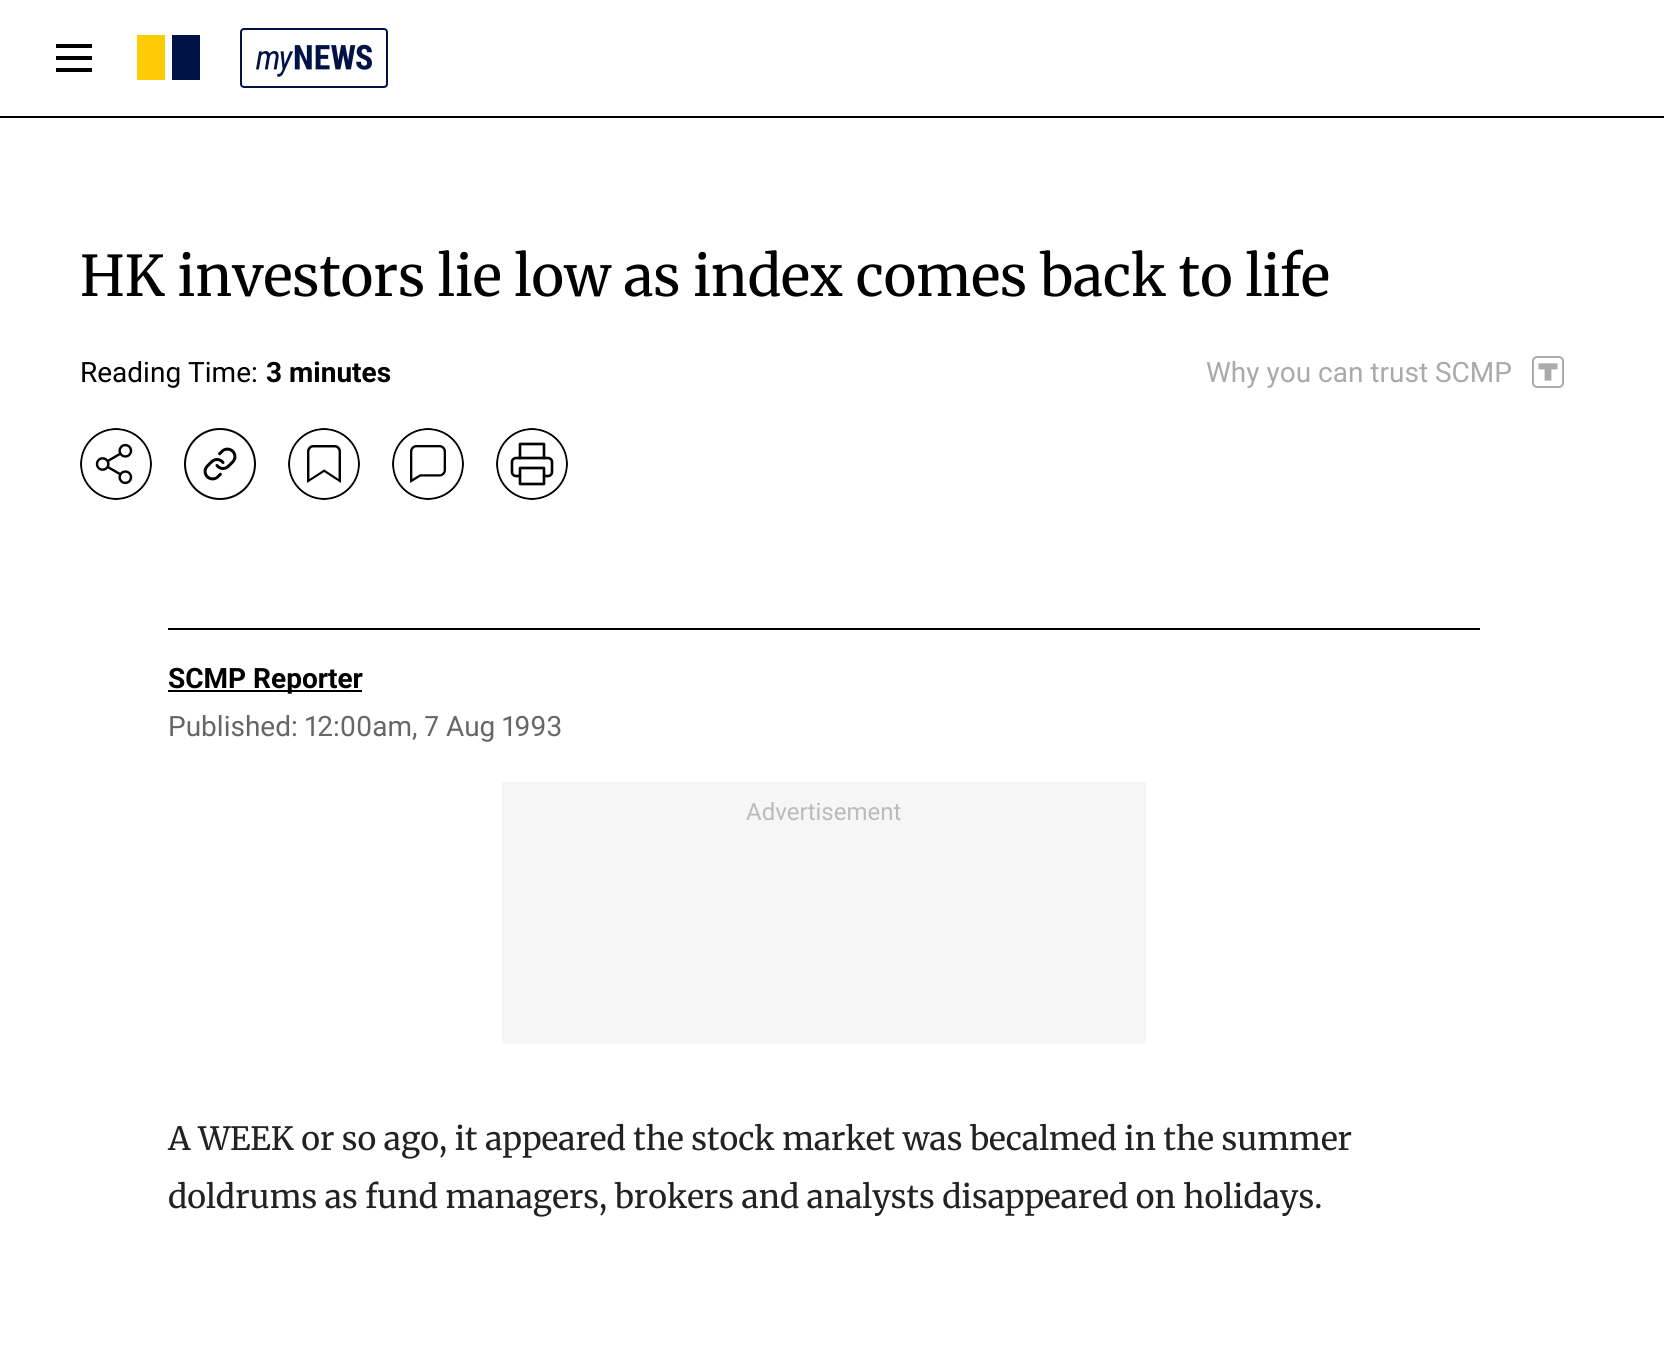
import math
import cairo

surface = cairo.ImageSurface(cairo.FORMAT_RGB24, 1678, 1367)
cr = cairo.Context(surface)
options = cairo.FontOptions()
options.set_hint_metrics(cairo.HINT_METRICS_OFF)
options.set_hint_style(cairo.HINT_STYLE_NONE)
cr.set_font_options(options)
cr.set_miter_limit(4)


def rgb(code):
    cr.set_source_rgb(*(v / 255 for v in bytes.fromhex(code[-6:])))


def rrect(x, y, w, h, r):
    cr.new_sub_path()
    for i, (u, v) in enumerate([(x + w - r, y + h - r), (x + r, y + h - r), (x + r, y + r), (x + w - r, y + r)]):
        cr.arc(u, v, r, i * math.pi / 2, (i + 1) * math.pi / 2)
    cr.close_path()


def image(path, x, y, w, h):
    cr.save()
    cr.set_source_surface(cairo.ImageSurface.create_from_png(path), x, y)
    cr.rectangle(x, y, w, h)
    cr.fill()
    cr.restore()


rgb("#ffffff")
cr.paint()
rgb("#000000")
cr.rectangle(0, 116, 1664, 2)
cr.fill()
cr.set_fill_rule(cairo.FILL_RULE_EVEN_ODD)
cr.new_path()
cr.move_to(56, 48)
cr.line_to(92, 48)
cr.line_to(92, 44)
cr.line_to(56, 44)
cr.close_path()
cr.move_to(56, 60)
cr.line_to(92, 60)
cr.line_to(92, 56)
cr.line_to(56, 56)
cr.close_path()
cr.move_to(92, 72)
cr.line_to(56, 72)
cr.line_to(56, 68)
cr.line_to(92, 68)
cr.close_path()
cr.fill()
rgb("#ffcb05")
cr.rectangle(137, 35, 28, 45)
cr.fill()
rgb("#001246")
cr.rectangle(172, 35, 28, 45)
cr.fill()
rrect(241, 29, 146, 58, 3)
cr.stroke()
image("img/1.png", 256, 44, 116, 33)
image("img/2.png", 1532, 356, 32, 32)
image("img/3.png", 80, 428, 72, 72)
image("img/4.png", 184, 428, 72, 72)
image("img/5.png", 288, 428, 72, 72)
image("img/6.png", 392, 428, 72, 72)
image("img/7.png", 496, 428, 72, 72)
for x, y, w, h, color in [
    (168, 628, 1312, 2, "#000000"),
    (168, 690, 194, 2, "#000000"),
    (502, 782, 644, 262, "#f6f6f6"),
]:
    rgb(color)
    cr.rectangle(x, y, w, h)
    cr.fill()
cr.select_font_face("Merriweather")
cr.set_font_size(56)
rgb("#000000")
cr.move_to(80, 296)
cr.show_text("HK investors lie low as index comes back to life")
cr.select_font_face("Roboto")
cr.set_font_size(28)
cr.move_to(80, 382)
cr.show_text("Reading Time:")
cr.select_font_face("Roboto", cairo.FONT_SLANT_NORMAL, cairo.FONT_WEIGHT_BOLD)
cr.move_to(266, 382)
cr.show_text("3 minutes")
cr.select_font_face("Roboto")
rgb("#aaaaaa")
cr.move_to(1206, 382)
cr.show_text("Why you can trust SCMP")
cr.select_font_face("Roboto", cairo.FONT_SLANT_NORMAL, cairo.FONT_WEIGHT_BOLD)
rgb("#000000")
cr.move_to(168, 688)
cr.show_text("SCMP Reporter")
cr.select_font_face("Roboto")
rgb("#666666")
cr.move_to(168, 736)
cr.show_text("Published:")
cr.select_font_face("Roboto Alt")
cr.move_to(305, 736)
cr.show_text("12:00am, 7 Aug 1993")
cr.select_font_face("Roboto")
cr.set_font_size(24)
rgb("#bbbbbb")
cr.move_to(746, 820)
cr.show_text("Advertisement")
cr.select_font_face("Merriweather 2")
cr.set_font_size(32)
rgb("#222222")
cr.move_to(168, 1150)
cr.show_text("A WEEK or so ago, it appeared the stock market was becalmed in the summer")
cr.move_to(168, 1208)
cr.show_text("doldrums as fund managers, brokers and analysts disappeared on holidays.")
surface.write_to_png("page.png")
